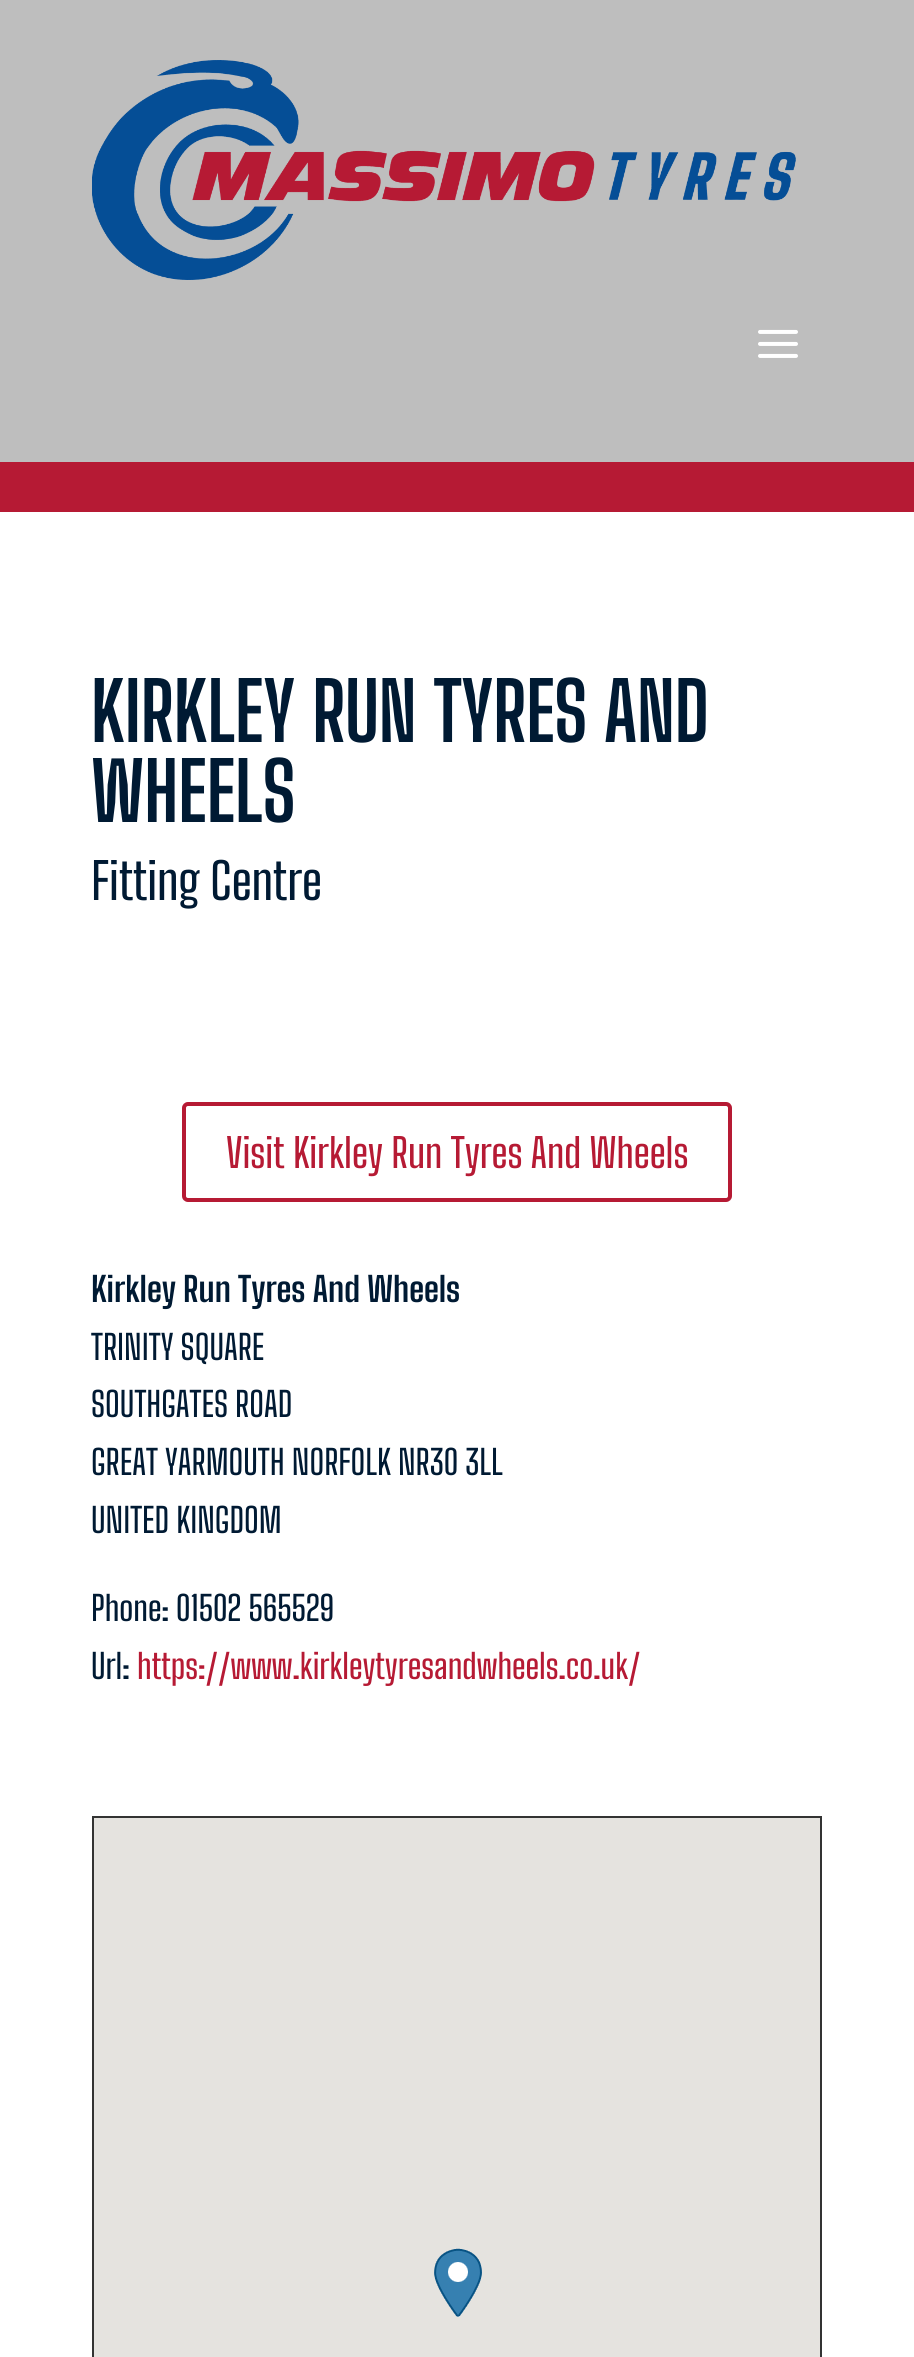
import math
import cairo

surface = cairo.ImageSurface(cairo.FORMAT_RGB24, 914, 2357)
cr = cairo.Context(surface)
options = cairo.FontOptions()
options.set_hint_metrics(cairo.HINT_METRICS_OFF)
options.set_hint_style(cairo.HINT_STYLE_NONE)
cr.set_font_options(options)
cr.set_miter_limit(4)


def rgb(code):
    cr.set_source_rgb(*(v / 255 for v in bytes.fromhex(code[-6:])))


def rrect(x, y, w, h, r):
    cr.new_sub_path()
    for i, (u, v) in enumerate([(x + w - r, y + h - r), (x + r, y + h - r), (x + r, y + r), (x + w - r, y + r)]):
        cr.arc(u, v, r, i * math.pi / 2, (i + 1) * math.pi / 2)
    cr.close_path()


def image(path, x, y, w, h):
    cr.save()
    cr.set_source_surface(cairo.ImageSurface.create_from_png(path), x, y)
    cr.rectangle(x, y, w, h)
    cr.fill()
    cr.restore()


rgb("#bebebe")
cr.paint()
rgb("#b61a34")
cr.rectangle(0, 462, 914, 50)
cr.fill()
image("img/1.png", 92, 60, 704, 220)
image("img/2.png", 758, 329, 40, 29)
rgb("#ffffff")
cr.rectangle(0, 512, 914, 1845)
cr.fill()
rrect(184, 1104, 546, 96, 4)
rgb("#b61a34")
cr.set_line_width(4)
cr.stroke()
cr.rectangle(93, 1817, 728, 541)
rgb("#333333")
cr.set_line_width(2)
cr.stroke()
rgb("#e5e3df")
cr.rectangle(94, 1818, 726, 539)
cr.fill()
image("img/3.png", 434, 2248, 48, 69)
cr.select_font_face("Big Shoulders Display Thin")
cr.set_font_size(80)
rgb("#001a33")
cr.move_to(91, 742)
cr.show_text("KIRKLEY RUN TYRES AND")
cr.move_to(91, 822)
cr.show_text("WHEELS")
cr.select_font_face("Big Shoulders Text Thin")
cr.set_font_size(50)
cr.move_to(91, 900)
cr.show_text("Fitting Centre")
cr.set_font_size(40)
rgb("#b61a34")
cr.move_to(226, 1168)
cr.show_text("Visit Kirkley Run Tyres And Wheels")
cr.select_font_face("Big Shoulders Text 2 Thin")
cr.set_font_size(34)
rgb("#001a33")
cr.move_to(91, 1302)
cr.show_text("Kirkley Run Tyres And Wheels")
cr.select_font_face("Big Shoulders Text Thin")
for x, y, s in [
    (91, 1360, "TRINITY SQUARE"),
    (91, 1417, "SOUTHGATES ROAD"),
    (91, 1475, "GREAT YARMOUTH NORFOLK NR30 3LL"),
    (91, 1533, "UNITED KINGDOM"),
    (91, 1621, "Phone: 01502 565529"),
    (91, 1679, "Url:"),
]:
    cr.move_to(x, y)
    cr.show_text(s)
rgb("#b61a34")
cr.move_to(137, 1679)
cr.show_text("https://www.kirkleytyresandwheels.co.uk/")
surface.write_to_png("page.png")
